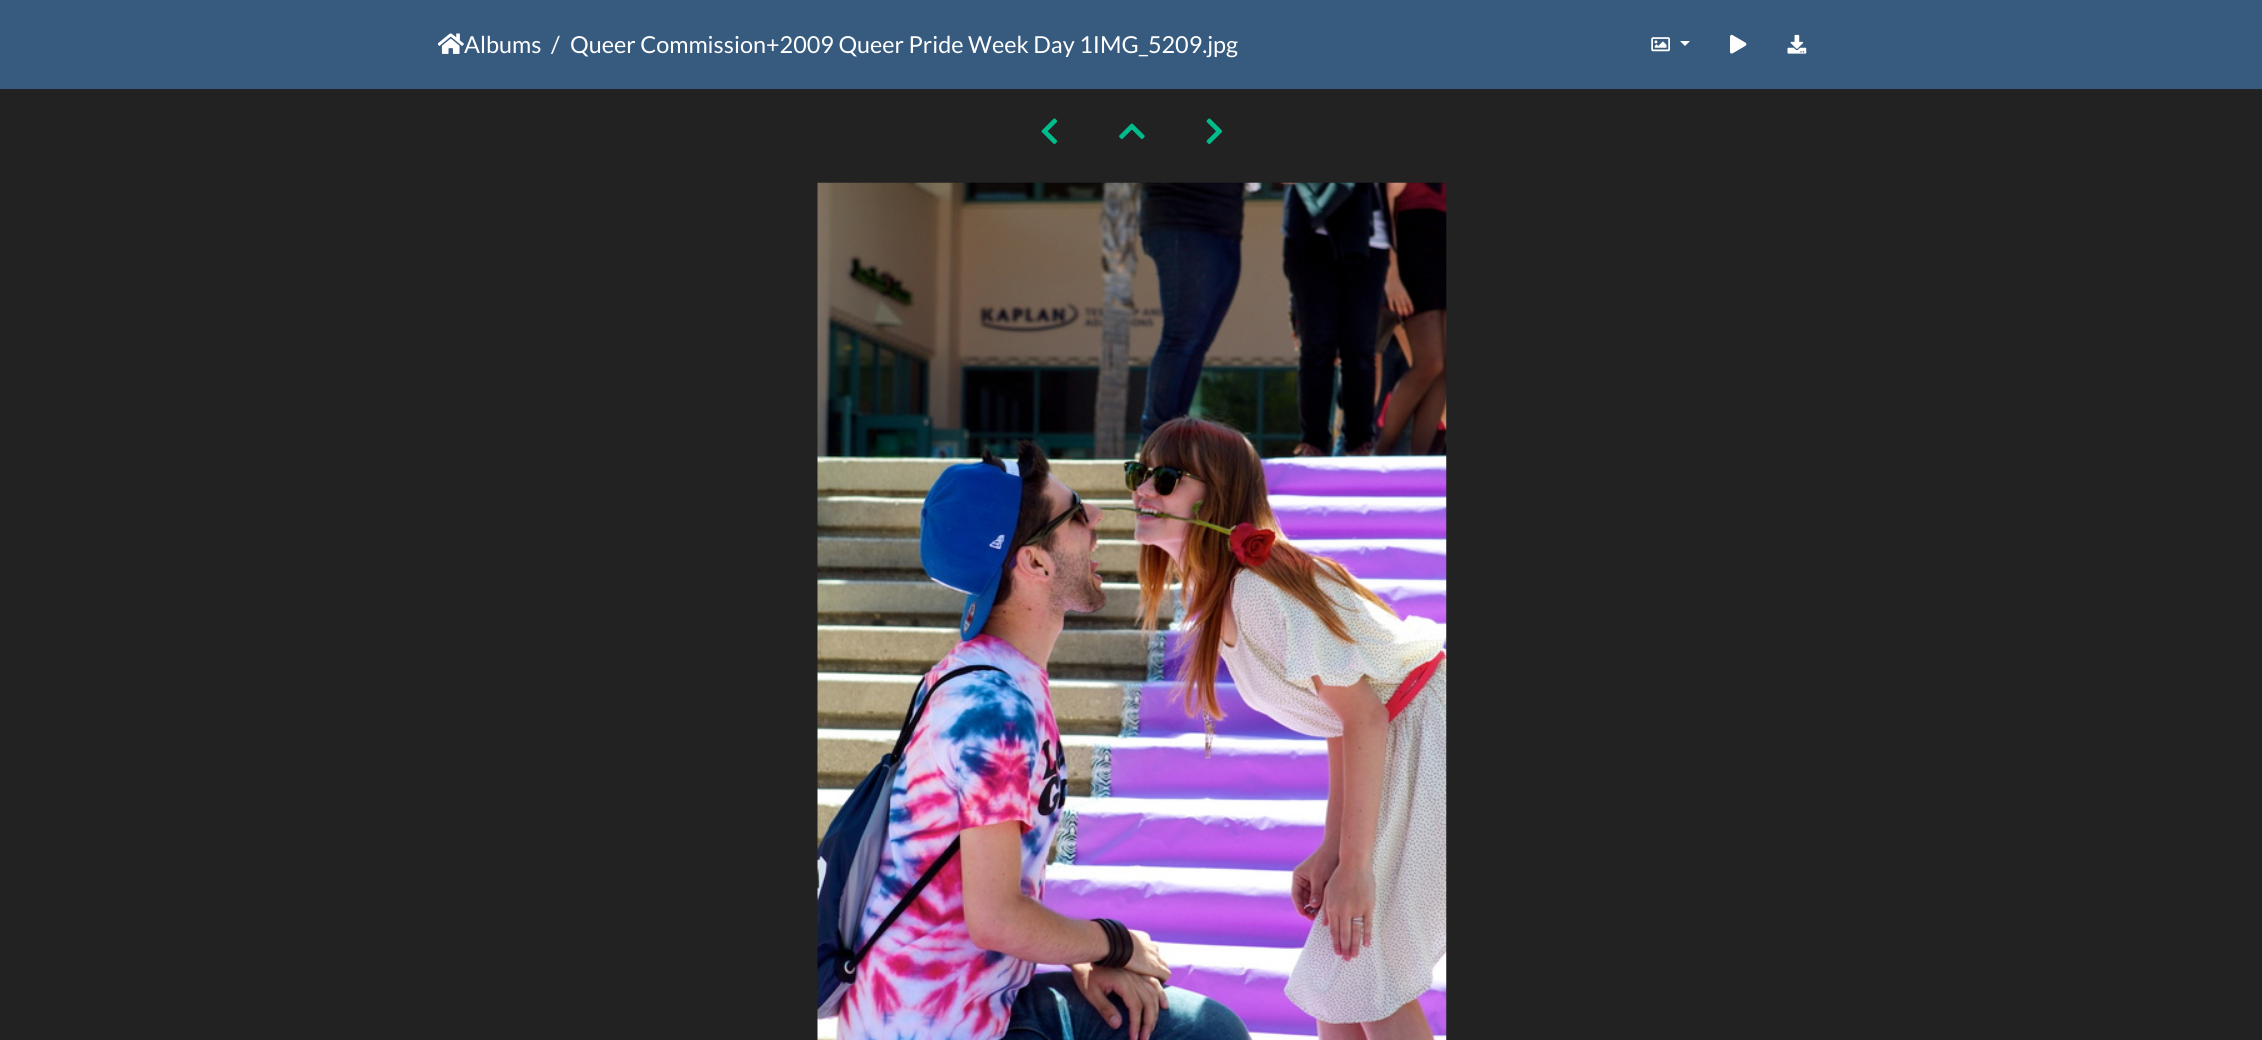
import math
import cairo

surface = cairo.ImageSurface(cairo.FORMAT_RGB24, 2262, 1040)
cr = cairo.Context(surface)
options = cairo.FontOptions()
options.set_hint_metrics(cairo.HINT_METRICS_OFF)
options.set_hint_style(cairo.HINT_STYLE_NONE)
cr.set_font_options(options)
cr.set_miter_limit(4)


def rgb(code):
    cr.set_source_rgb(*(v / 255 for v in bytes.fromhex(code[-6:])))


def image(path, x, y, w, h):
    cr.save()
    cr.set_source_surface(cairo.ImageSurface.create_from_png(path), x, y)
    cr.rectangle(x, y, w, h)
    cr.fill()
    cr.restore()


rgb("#222222")
cr.paint()
rgb("#375a7f")
cr.rectangle(0, 0, 2262, 89)
cr.fill()
image("img/1.png", 438, 33, 26, 21)
image("img/2.png", 1651, 37, 19, 15)
rgb("#ffffff")
cr.new_path()
cr.move_to(1680, 41)
cr.line_to(1690, 41)
cr.line_to(1685, 46)
cr.close_path()
cr.fill()
image("img/3.png", 1730, 34, 17, 20)
image("img/4.png", 1787, 34, 20, 20)
image("img/5.png", 1041, 118, 17, 26)
image("img/6.png", 1119, 123, 26, 16)
image("img/7.png", 1206, 118, 17, 26)
image("img/8.png", 817, 182, 630, 858)
cr.select_font_face("Lato")
cr.set_font_size(23.4)
for x, y, s in [
    (464, 53, "Albums"),
    (551, 53, "/"),
    (570, 53, "Queer Commission"),
    (766, 53, "+2009 Queer Pride Week Day 1IMG_5209.jpg"),
]:
    cr.move_to(x, y)
    cr.show_text(s)
surface.write_to_png("page.png")
